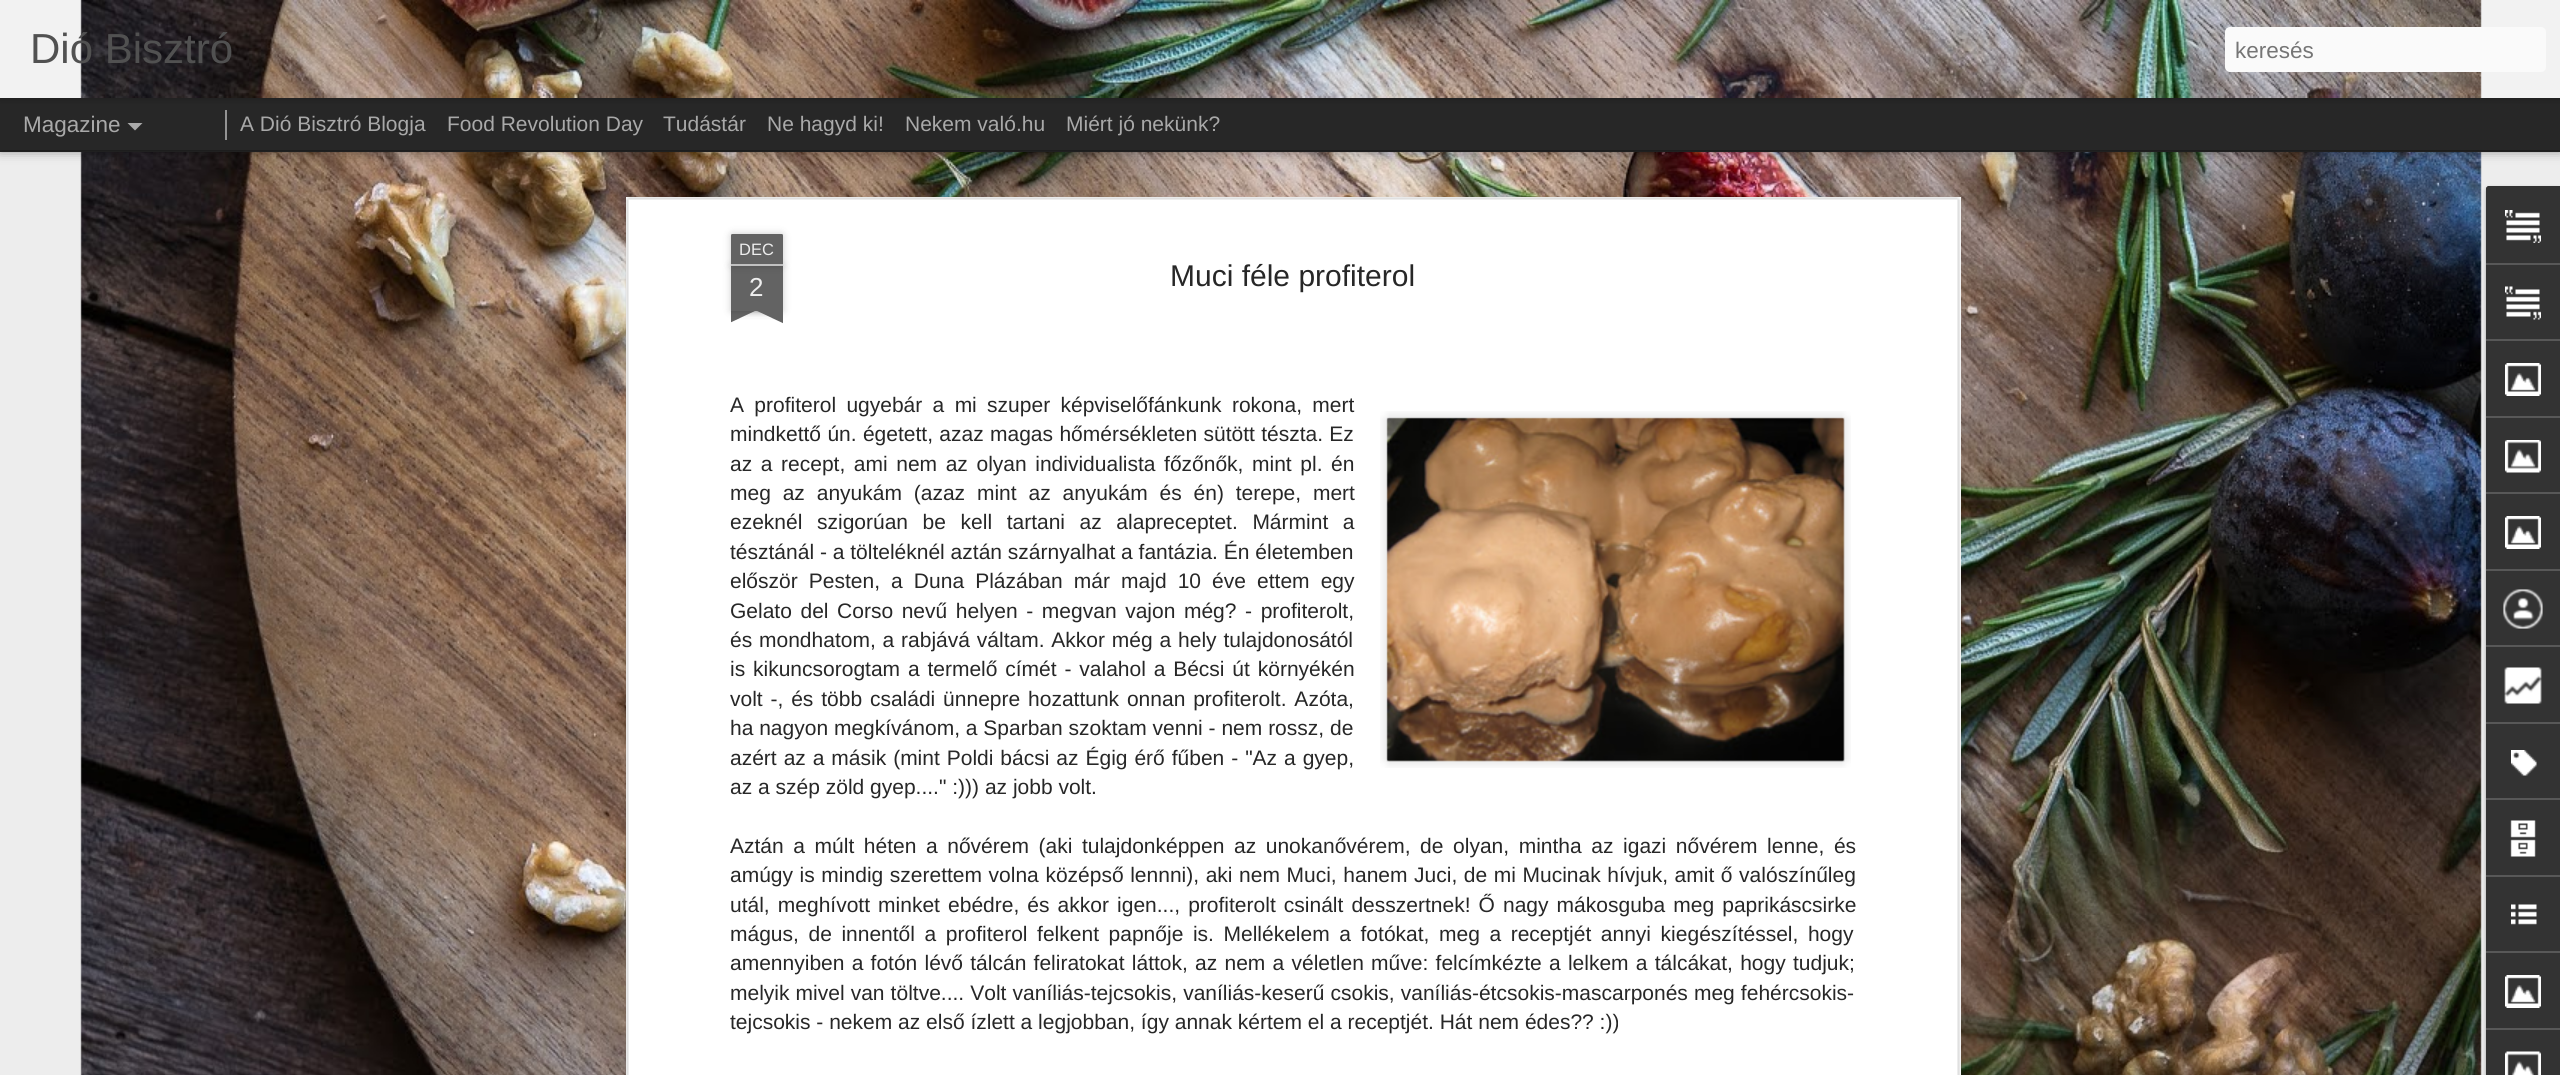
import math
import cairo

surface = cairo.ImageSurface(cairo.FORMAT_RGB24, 2560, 1075)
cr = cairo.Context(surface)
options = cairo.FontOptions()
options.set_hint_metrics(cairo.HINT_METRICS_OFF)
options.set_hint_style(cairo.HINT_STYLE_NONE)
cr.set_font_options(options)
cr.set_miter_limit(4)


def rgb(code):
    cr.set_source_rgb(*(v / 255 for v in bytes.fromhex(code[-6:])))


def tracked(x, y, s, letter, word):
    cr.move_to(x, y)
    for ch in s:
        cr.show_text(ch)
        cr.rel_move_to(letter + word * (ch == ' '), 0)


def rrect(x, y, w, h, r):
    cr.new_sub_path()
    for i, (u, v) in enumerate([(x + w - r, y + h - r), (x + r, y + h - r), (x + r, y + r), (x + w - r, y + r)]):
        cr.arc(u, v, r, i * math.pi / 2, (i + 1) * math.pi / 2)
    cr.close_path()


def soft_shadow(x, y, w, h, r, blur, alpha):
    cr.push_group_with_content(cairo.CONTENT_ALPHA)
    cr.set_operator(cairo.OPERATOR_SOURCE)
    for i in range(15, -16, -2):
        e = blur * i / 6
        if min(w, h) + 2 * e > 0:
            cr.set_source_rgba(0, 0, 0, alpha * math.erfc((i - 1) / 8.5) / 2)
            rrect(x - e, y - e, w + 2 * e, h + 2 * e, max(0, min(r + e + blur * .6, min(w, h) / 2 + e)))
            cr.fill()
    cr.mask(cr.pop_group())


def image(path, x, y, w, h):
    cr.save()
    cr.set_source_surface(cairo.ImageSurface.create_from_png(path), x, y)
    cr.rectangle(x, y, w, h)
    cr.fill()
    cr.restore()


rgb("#272727")
cr.paint()
rgb("#ededed")
cr.rectangle(0, 152, 2560, 923)
cr.fill()
image("img/2.png", 80, 152, 2402, 923)
rgb("#000000")
soft_shadow(0, 98, 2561, 52, 0, 6, 0.5)
rgb("#272727")
cr.rectangle(0, 98, 2560, 52)
cr.fill()
rgb("#939393")
cr.rectangle(225, 110, 2, 30)
cr.fill()
rgb("#000000")
soft_shadow(0, 0, 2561, 98, 0, 4, 0.3)
rgb("#f2f2f2")
cr.rectangle(0, 0, 2560, 98)
cr.fill()
image("img/1.png", 80, 0, 2402, 98)
rgb("#fafafa")
rrect(2225, 27, 321, 45, 5)
cr.fill()
rgb("#a9a9a9")
cr.new_path()
cr.move_to(127.5, 123)
cr.line_to(142.5, 123)
cr.line_to(135, 130.5)
cr.close_path()
cr.fill()
rgb("#ffffff")
cr.rectangle(626, 197, 1335, 878)
cr.fill()
image("img/3.png", 625, 197, 1336, 878)
rgb("#000000")
soft_shadow(731, 266, 52, 45, 0, 4, 0.2)
rgb("#636363")
cr.rectangle(731, 266, 52, 45)
cr.fill()
rgb("#000000")
soft_shadow(731, 234, 52, 32, 1.5, 4, 0.2)
rgb("#636363")
cr.new_path()
cr.move_to(732.5, 234)
cr.line_to(781.5, 234)
cr.curve_to(782.5, 234, 783, 234.5, 783, 235.5)
cr.line_to(783, 266)
cr.line_to(731, 266)
cr.line_to(731, 235.5)
cr.curve_to(731, 234.5, 731.5, 234, 732.5, 234)
cr.close_path()
cr.fill()
rgb("#c1c1c1")
cr.rectangle(731, 264, 52, 2)
cr.fill()
cr.save()
cr.rectangle(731, 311, 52, 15)
cr.clip()
rgb("#000000")
soft_shadow(717, 296, 75, 15, 0, 4, 0.2)
cr.restore()
cr.save()
cr.rectangle(731, 311, 52, 15)
cr.clip()
rgb("#636363")
cr.new_path()
cr.move_to(717, 312)
cr.line_to(785, 280)
cr.line_to(791, 294)
cr.line_to(723, 326)
cr.close_path()
cr.fill()
cr.restore()
cr.save()
cr.rectangle(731, 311, 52, 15)
cr.clip()
rgb("#000000")
soft_shadow(722, 296, 75, 15, 0, 4, 0.2)
cr.restore()
cr.save()
cr.rectangle(731, 311, 52, 15)
cr.clip()
rgb("#636363")
cr.new_path()
cr.move_to(727, 280)
cr.line_to(795, 312)
cr.line_to(789, 326)
cr.line_to(721, 294)
cr.close_path()
cr.fill()
cr.restore()
image("img/4.png", 1380, 411, 471, 357)
image("img/5.png", 1386, 417, 459, 345)
rgb("#000000")
soft_shadow(2486, 188, 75, 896, 3, 2, 0.3)
rgb("#333333")
cr.new_path()
cr.move_to(2489, 186)
cr.line_to(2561, 186)
cr.line_to(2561, 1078)
cr.line_to(2489, 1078)
cr.curve_to(2487.5, 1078, 2486, 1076.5, 2486, 1075)
cr.line_to(2486, 189)
cr.curve_to(2486, 187.5, 2487.5, 186, 2489, 186)
cr.close_path()
cr.fill()
cr.new_path()
cr.move_to(2489, 186)
cr.line_to(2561, 186)
cr.line_to(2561, 263)
cr.line_to(2486, 263)
cr.line_to(2486, 189)
cr.curve_to(2486, 187.5, 2487.5, 186, 2489, 186)
cr.close_path()
cr.fill()
image("img/6.png", 2505, 210, 36, 33)
rgb("#585858")
cr.rectangle(2486, 263, 74, 2)
cr.fill()
image("img/7.png", 2505, 286, 36, 34)
cr.rectangle(2486, 339, 74, 2)
cr.fill()
image("img/8.png", 2505, 363, 36, 33)
cr.rectangle(2486, 416, 74, 2)
cr.fill()
image("img/9.png", 2505, 440, 36, 33)
cr.rectangle(2486, 492, 74, 2)
cr.fill()
image("img/8.png", 2505, 516, 36, 33)
cr.rectangle(2486, 569, 74, 2)
cr.fill()
image("img/10.png", 2503, 589, 40, 40)
cr.rectangle(2486, 645, 74, 2)
cr.fill()
image("img/11.png", 2504, 667, 38, 37)
cr.rectangle(2486, 722, 74, 2)
cr.fill()
image("img/12.png", 2511, 750, 26, 26)
cr.rectangle(2486, 798, 74, 2)
cr.fill()
image("img/13.png", 2510, 820, 26, 37)
cr.rectangle(2486, 875, 74, 2)
cr.fill()
image("img/14.png", 2511, 904, 26, 21)
cr.rectangle(2486, 951, 74, 2)
cr.fill()
image("img/8.png", 2505, 975, 36, 33)
cr.rectangle(2486, 1028, 74, 2)
cr.fill()
image("img/15.png", 2505, 1051, 36, 24)
cr.select_font_face("Liberation Sans")
cr.set_font_size(42)
rgb("#515151")
cr.move_to(30, 63)
cr.show_text("Dió Bisztró")
cr.set_font_size(22.5)
rgb("#757575")
cr.move_to(2235, 58)
cr.show_text("keresés")
rgb("#a9a9a9")
cr.move_to(23, 132)
cr.show_text("Magazine")
cr.set_font_size(21)
for x, y, s in [
    (240, 131, "A Dió Bisztró Blogja"),
    (447, 131, "Food Revolution Day"),
    (663, 131, "Tudástár"),
    (767, 131, "Ne hagyd ki!"),
    (905, 131, "Nekem való.hu"),
    (1066, 131, "Miért jó nekünk?"),
]:
    cr.move_to(x, y)
    cr.show_text(s)
cr.set_font_size(16.5)
rgb("#eeeeee")
cr.move_to(739, 255)
cr.show_text("DEC")
cr.set_font_size(26)
cr.move_to(749, 296)
cr.show_text("2")
cr.set_font_size(30)
rgb("#272727")
cr.move_to(1170, 286)
cr.show_text("Muci féle profiterol")
cr.set_font_size(21)
tracked(730, 412, "A profiterol ugyebár a mi szuper képviselőfánkunk rokona, mert", 0, 4.5)
tracked(730, 441, "mindkettő ún. égetett, azaz magas hőmérsékleten sütött tészta. Ez", 0, 0.5)
tracked(730, 471, "az a recept, ami nem az olyan individualista főzőnők, mint pl. én", 0, 2.75)
tracked(730, 500, "meg az anyukám (azaz mint az anyukám és én) terepe, mert", 0, 6)
tracked(730, 529, "ezeknél szigorúan be kell tartani az alapreceptet. Mármint a", 0, 8.75)
cr.move_to(730, 559)
cr.show_text("tésztánál - a tölteléknél aztán szárnyalhat a fantázia. Én életemben")
tracked(730, 588, "először Pesten, a Duna Plázában már majd 10 éve ettem egy", 0, 5.25)
tracked(730, 618, "Gelato del Corso nevű helyen - megvan vajon még? - profiterolt,", 0, 2.75)
tracked(730, 647, "és mondhatom, a rabjává váltam. Akkor még a hely tulajdonosától", 0, 1)
tracked(730, 676, "is kikuncsorogtam a termelő címét - valahol a Bécsi út környékén", 0, 2)
tracked(730, 706, "volt -, és több családi ünnepre hozattunk onnan profiterolt. Azóta,", 0, 2)
cr.move_to(730, 735)
cr.show_text("ha nagyon megkívánom, a Sparban szoktam venni - nem rossz, de")
tracked(730, 765, "azért az a másik (mint Poldi bácsi az Égig érő fűben - \"Az a gyep,", 0, 1.1)
cr.move_to(730, 794)
cr.show_text("az a szép zöld gyep....\" :))) az jobb volt.")
tracked(730, 853, "Aztán a múlt héten a nővérem (aki tulajdonképpen az unokanővérem, de olyan, mintha az igazi nővérem lenne, és", 0, 3.75)
tracked(730, 882, "amúgy is mindig szerettem volna középső lennni), aki nem Muci, hanem Juci, de mi Mucinak hívjuk, amit ő valószínűleg", 0, 0.75)
tracked(730, 912, "utál, meghívott minket ebédre, és akkor igen..., profiterolt csinált desszertnek! Ő nagy mákosguba meg paprikáscsirke", 0, 2.25)
tracked(730, 941, "mágus, de innentől a profiterol felkent papnője is. Mellékelem a fotókat, meg a receptjét annyi kiegészítéssel, hogy", 0, 3.75)
tracked(730, 970, "amennyiben a fotón lévő tálcán feliratokat láttok, az nem a véletlen műve: felcímkézte a lelkem a tálcákat, hogy tudjuk;", 0, 1.4)
tracked(730, 1000, "melyik mivel van töltve.... Volt vaníliás-tejcsokis, vaníliás-keserű csokis, vaníliás-étcsokis-mascarponés meg fehércsokis-", 0, 0.25)
cr.move_to(730, 1029)
cr.show_text("tejcsokis - nekem az első ízlett a legjobban, így annak kértem el a receptjét. Hát nem édes?? :))")
surface.write_to_png("page.png")
